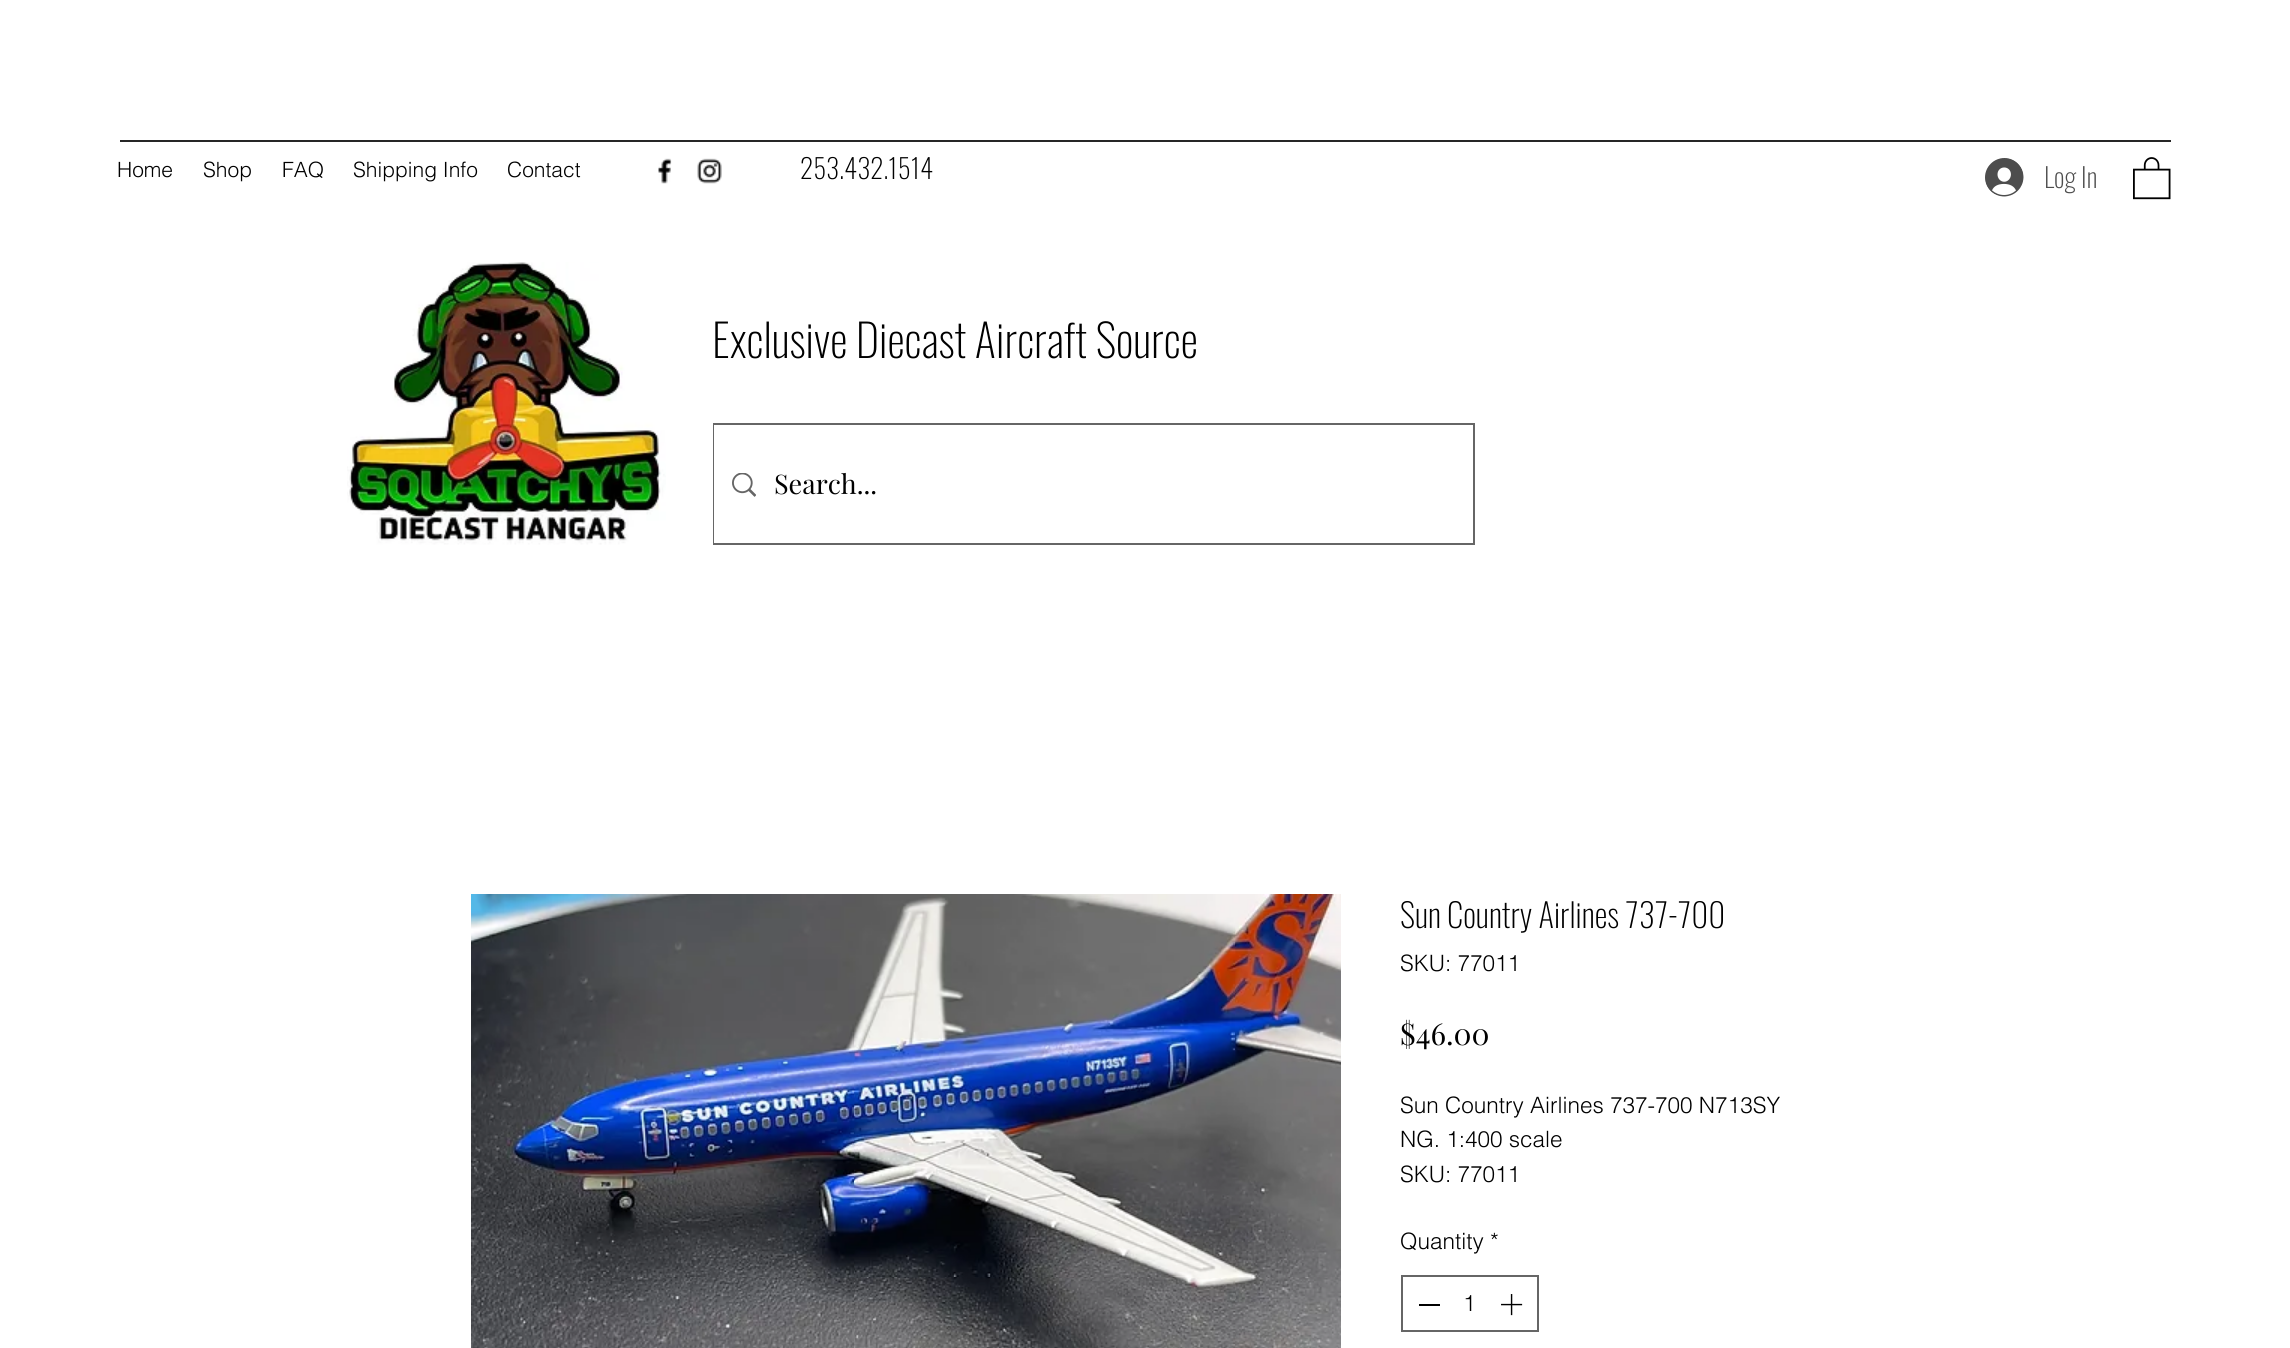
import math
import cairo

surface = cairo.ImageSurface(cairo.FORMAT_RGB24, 2290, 1348)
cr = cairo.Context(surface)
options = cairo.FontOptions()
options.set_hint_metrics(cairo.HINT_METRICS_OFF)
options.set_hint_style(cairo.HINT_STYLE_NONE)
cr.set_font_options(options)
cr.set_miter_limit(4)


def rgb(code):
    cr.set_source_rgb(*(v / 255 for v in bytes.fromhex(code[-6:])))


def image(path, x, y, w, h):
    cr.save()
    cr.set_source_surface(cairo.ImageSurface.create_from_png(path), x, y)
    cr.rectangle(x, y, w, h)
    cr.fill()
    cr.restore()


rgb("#ffffff")
cr.paint()
rgb("#262626")
cr.rectangle(120, 140, 2051, 2)
cr.fill()
image("img/1.png", 658, 158, 14, 26)
image("img/2.png", 697, 158, 25, 26)
image("img/3.png", 1985, 158, 39, 39)
image("img/4.png", 2133, 157, 38, 43)
image("img/5.png", 347, 262, 319, 283)
cr.rectangle(714, 424, 760, 120)
rgb("#666666")
cr.stroke()
rgb("#ffffff")
cr.rectangle(714, 425, 1, 118)
cr.fill()
image("img/6.png", 732, 473, 24, 24)
image("img/7.png", 471, 894, 870, 454)
cr.rectangle(1402, 1276, 136, 55)
rgb("#666666")
cr.stroke()
rgb("#000000")
cr.rectangle(1419, 1304, 21, 2)
cr.fill()
image("img/8.png", 1501, 1294, 22, 22)
cr.select_font_face("helvetica Light")
cr.set_font_size(21)
for x, y, s in [
    (117, 177, "Home"),
    (203, 177, "Shop"),
    (282, 177, "FAQ"),
    (353, 177, "Shipping Info"),
    (507, 177, "Contact"),
]:
    cr.move_to(x, y)
    cr.show_text(s)
cr.select_font_face("Oswald ExtraLight")
cr.set_font_size(27)
cr.move_to(800, 179)
cr.show_text("253.432.1514")
rgb("#4d4d4d")
cr.move_to(2044, 188)
cr.show_text("Log In")
cr.set_font_size(45)
rgb("#000000")
cr.move_to(712, 358)
cr.show_text("Exclusive Diecast Aircraft Source")
cr.select_font_face("Playfair Display")
cr.set_font_size(27)
cr.move_to(774, 494)
cr.show_text("Search...")
cr.select_font_face("Oswald ExtraLight")
cr.set_font_size(33)
cr.move_to(1400, 928)
cr.show_text("Sun Country Airlines 737-700")
cr.select_font_face("helvetica Light")
cr.set_font_size(22.5)
cr.move_to(1400, 971)
cr.show_text("SKU: 77011")
cr.select_font_face("Playfair Display")
cr.set_font_size(30)
cr.move_to(1400, 1045)
cr.show_text("$46.00")
cr.select_font_face("helvetica Light")
cr.set_font_size(22.5)
for x, y, s in [
    (1400, 1113, "Sun Country Airlines 737-700 N713SY"),
    (1400, 1147, "NG. 1:400 scale"),
    (1400, 1182, "SKU: 77011"),
    (1400, 1249, "Quantity *"),
    (1463, 1311, "1"),
]:
    cr.move_to(x, y)
    cr.show_text(s)
surface.write_to_png("page.png")
